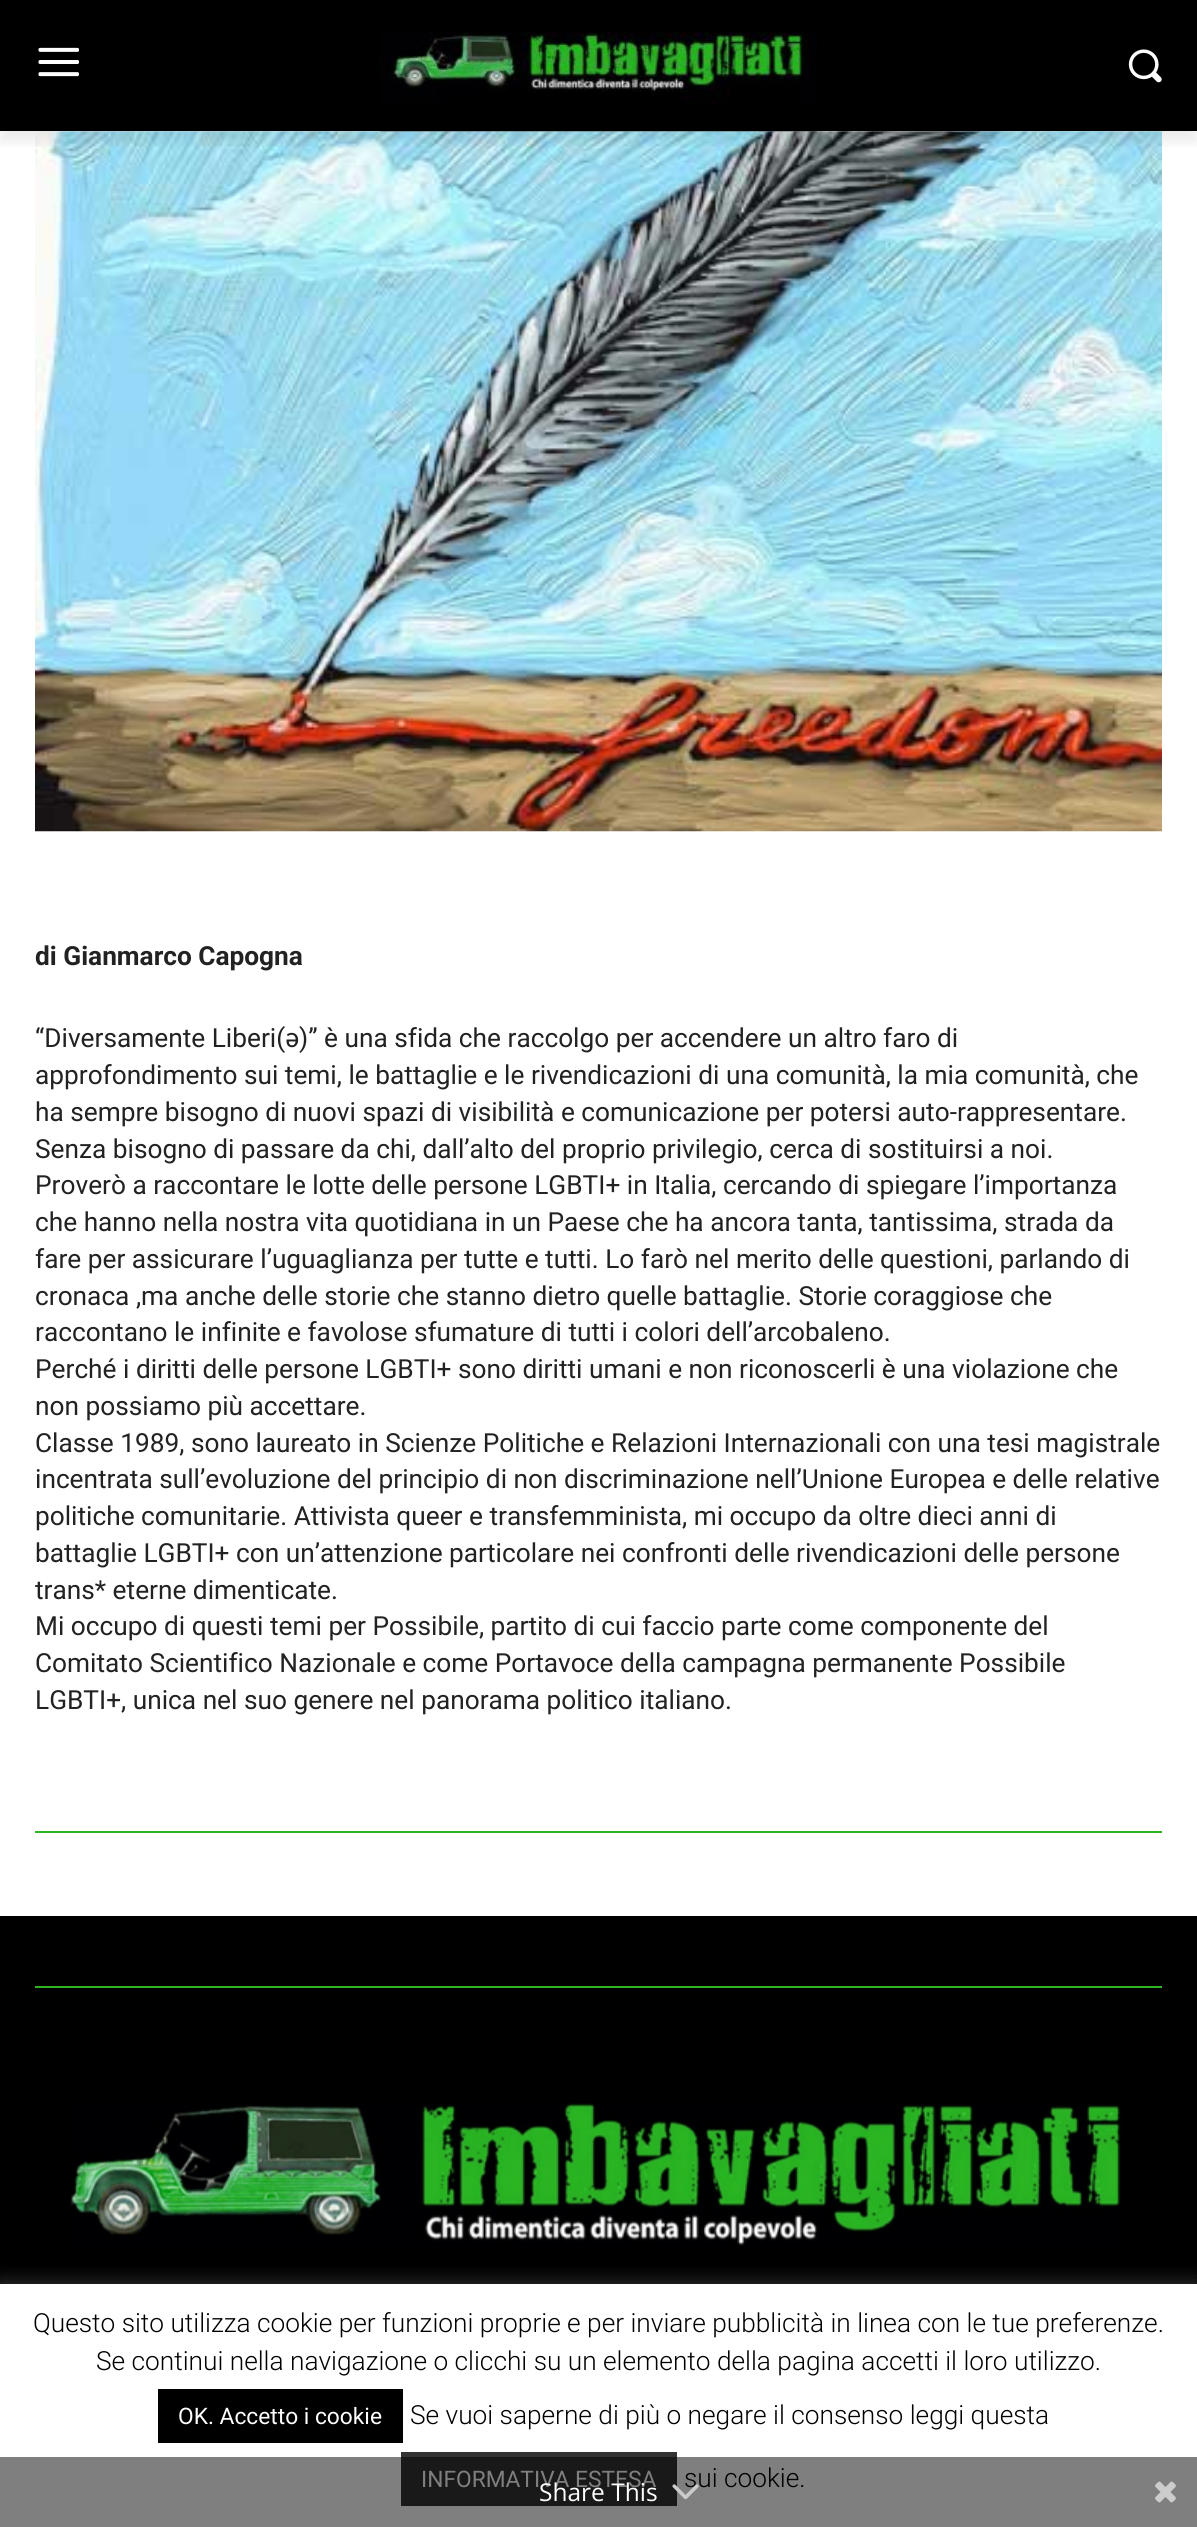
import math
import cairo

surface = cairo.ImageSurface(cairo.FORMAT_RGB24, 1197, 2527)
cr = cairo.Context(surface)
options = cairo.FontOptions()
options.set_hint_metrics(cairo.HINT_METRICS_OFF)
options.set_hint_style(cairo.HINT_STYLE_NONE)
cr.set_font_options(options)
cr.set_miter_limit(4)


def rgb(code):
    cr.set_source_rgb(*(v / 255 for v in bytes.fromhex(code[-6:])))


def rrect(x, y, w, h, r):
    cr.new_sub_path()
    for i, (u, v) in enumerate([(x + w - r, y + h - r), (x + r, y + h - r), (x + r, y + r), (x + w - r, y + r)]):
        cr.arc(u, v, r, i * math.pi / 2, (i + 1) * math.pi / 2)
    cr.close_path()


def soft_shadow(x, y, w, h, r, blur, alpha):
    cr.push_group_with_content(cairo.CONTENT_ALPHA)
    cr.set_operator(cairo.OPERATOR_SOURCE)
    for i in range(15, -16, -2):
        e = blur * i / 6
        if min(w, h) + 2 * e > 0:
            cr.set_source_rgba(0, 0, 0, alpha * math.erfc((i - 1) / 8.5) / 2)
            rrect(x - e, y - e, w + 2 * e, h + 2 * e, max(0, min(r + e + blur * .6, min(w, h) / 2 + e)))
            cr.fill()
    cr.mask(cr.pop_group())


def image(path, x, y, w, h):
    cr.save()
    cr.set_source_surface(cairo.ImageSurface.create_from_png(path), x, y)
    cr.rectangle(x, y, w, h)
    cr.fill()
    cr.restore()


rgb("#ffffff")
cr.paint()
rgb("#000000")
cr.rectangle(0, 0, 1197, 131)
cr.fill()
image("img/1.png", 38, 47, 41, 30)
image("img/4.png", 35, 131, 1127, 701)
image("img/2.png", 379, 32, 439, 100)
image("img/3.png", 1128, 49, 34, 34)
cr.save()
cr.rectangle(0, 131, 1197, 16)
cr.clip()
rgb("#000000")
soft_shadow(0, 11, 1197, 131, 0, 7, 0.08)
cr.restore()
for x, y, w, h, color in [
    (35, 1831, 1127, 2, "#2fb322"),
    (0, 1916, 1197, 368, "#000000"),
    (35, 1986, 1127, 2, "#2fb322"),
]:
    rgb(color)
    cr.rectangle(x, y, w, h)
    cr.fill()
image("img/5.png", 69, 2103, 1055, 143)
rgb("#acabab")
soft_shadow(0, 2282, 1197, 243, 0, 9, 0.3)
for x, y, w, h, color in [
    (0, 2284, 1197, 243, "#ffffff"),
    (158, 2389, 245, 54, "#000000"),
    (401, 2452, 276, 54, "#333333"),
]:
    rgb(color)
    cr.rectangle(x, y, w, h)
    cr.fill()
cr.select_font_face("Roboto", cairo.FONT_SLANT_NORMAL, cairo.FONT_WEIGHT_BOLD)
cr.set_font_size(26.25)
rgb("#222222")
cr.move_to(35, 965)
cr.show_text("di Gianmarco Capogna")
cr.select_font_face("Roboto")
for x, y, s in [
    (35, 1047, "“Diversamente Liberi(ə)” è una sfida che raccolgo per accendere un altro faro di"),
    (35, 1084, "approfondimento sui temi, le battaglie e le rivendicazioni di una comunità, la mia comunità, che"),
    (35, 1121, "ha sempre bisogno di nuovi spazi di visibilità e comunicazione per potersi auto-rappresentare."),
    (35, 1158, "Senza bisogno di passare da chi, dall’alto del proprio privilegio, cerca di sostituirsi a noi."),
    (35, 1194, "Proverò a raccontare le lotte delle persone LGBTI+ in Italia, cercando di spiegare l’importanza"),
    (35, 1231, "che hanno nella nostra vita quotidiana in un Paese che ha ancora tanta, tantissima, strada da"),
    (35, 1268, "fare per assicurare l’uguaglianza per tutte e tutti. Lo farò nel merito delle questioni, parlando di"),
    (35, 1305, "cronaca ,ma anche delle storie che stanno dietro quelle battaglie. Storie coraggiose che"),
    (35, 1341, "raccontano le infinite e favolose sfumature di tutti i colori dell’arcobaleno."),
    (35, 1378, "Perché i diritti delle persone LGBTI+ sono diritti umani e non riconoscerli è una violazione che"),
    (35, 1415, "non possiamo più accettare."),
    (35, 1452, "Classe 1989, sono laureato in Scienze Politiche e Relazioni Internazionali con una tesi magistrale"),
    (35, 1488, "incentrata sull’evoluzione del principio di non discriminazione nell’Unione Europea e delle relative"),
    (35, 1525, "politiche comunitarie. Attivista queer e transfemminista, mi occupo da oltre dieci anni di"),
    (35, 1562, "battaglie LGBTI+ con un’attenzione particolare nei confronti delle rivendicazioni delle persone"),
    (35, 1599, "trans* eterne dimenticate."),
    (35, 1635, "Mi occupo di questi temi per Possibile, partito di cui faccio parte come componente del"),
    (35, 1672, "Comitato Scientifico Nazionale e come Portavoce della campagna permanente Possibile"),
    (35, 1709, "LGBTI+, unica nel suo genere nel panorama politico italiano."),
]:
    cr.move_to(x, y)
    cr.show_text(s)
cr.select_font_face("Roboto Light")
rgb("#000000")
cr.move_to(33, 2332)
cr.show_text("Questo sito utilizza cookie per funzioni proprie e per inviare pubblicità in linea con le tue preferenze.")
cr.move_to(96, 2370)
cr.show_text("Se continui nella navigazione o clicchi su un elemento della pagina accetti il loro utilizzo.")
cr.select_font_face("Roboto")
cr.set_font_size(22.75)
rgb("#ffffff")
cr.move_to(178, 2424)
cr.show_text("OK. Accetto i cookie")
cr.select_font_face("Roboto Light")
cr.set_font_size(26.25)
rgb("#000000")
cr.move_to(410, 2424)
cr.show_text("Se vuoi saperne di più o negare il consenso leggi questa")
cr.select_font_face("Roboto")
cr.set_font_size(22.75)
rgb("#ffffff")
cr.move_to(421, 2487)
cr.show_text("INFORMATIVA ESTESA")
cr.select_font_face("Roboto Light")
cr.set_font_size(26.25)
rgb("#000000")
cr.move_to(684, 2487)
cr.show_text("sui cookie.")
cr.set_source_rgba(0, 0, 0, 0.5)
cr.rectangle(0, 2457, 1197, 70)
cr.fill()
cr.select_font_face("Open Sans")
cr.set_font_size(24.5)
rgb("#ffffff")
cr.move_to(539, 2501)
cr.show_text("Share This")
image("img/6.png", 672, 2484, 27, 16)
image("img/7.png", 1155, 2481, 21, 22)
surface.write_to_png("page.png")
